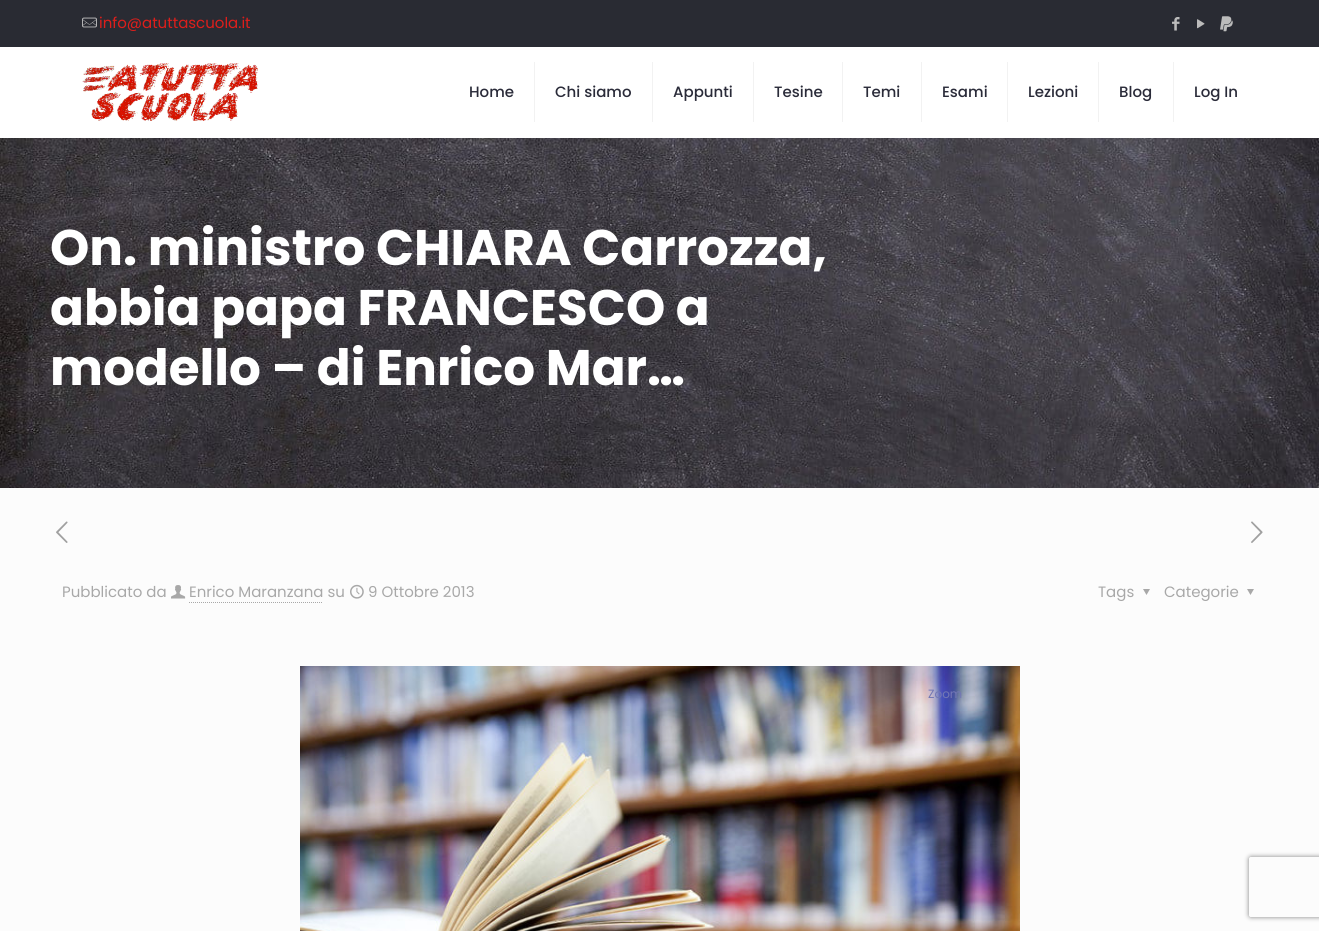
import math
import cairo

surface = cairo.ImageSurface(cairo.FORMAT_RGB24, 1319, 931)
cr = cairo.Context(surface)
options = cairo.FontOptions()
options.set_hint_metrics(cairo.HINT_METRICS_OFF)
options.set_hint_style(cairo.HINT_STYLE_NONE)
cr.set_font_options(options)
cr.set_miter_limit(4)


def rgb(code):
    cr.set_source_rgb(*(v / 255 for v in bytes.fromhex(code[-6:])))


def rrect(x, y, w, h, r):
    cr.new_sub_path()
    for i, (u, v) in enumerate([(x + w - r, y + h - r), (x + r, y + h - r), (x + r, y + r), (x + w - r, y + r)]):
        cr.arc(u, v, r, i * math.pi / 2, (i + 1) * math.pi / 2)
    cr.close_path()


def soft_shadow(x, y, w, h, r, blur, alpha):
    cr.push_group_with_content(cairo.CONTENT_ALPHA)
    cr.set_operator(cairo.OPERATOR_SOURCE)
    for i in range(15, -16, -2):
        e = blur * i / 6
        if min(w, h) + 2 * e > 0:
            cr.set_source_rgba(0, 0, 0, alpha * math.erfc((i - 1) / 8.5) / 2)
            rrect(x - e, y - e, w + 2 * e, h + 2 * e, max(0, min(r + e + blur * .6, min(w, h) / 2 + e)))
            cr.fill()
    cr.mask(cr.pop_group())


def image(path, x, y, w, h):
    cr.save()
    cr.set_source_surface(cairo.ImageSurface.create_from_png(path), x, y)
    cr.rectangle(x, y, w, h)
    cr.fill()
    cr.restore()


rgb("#fcfcfc")
cr.paint()
rgb("#292b33")
cr.rectangle(0, 0, 1319, 47)
cr.fill()
image("img/1.png", 82, 17, 15, 11)
image("img/2.png", 1172, 17, 8, 14)
image("img/3.png", 1197, 19, 8, 10)
image("img/4.png", 1220, 16, 13, 16)
rgb("#ffffff")
cr.rectangle(0, 47, 1319, 91)
cr.fill()
image("img/5.png", 82, 63, 176, 58)
for x, y, w, h, color in [
    (534, 62, 1, 60, "#f2f2f2"),
    (652, 62, 1, 60, "#f2f2f2"),
    (753, 62, 1, 60, "#f2f2f2"),
    (842, 62, 1, 60, "#f2f2f2"),
    (921, 62, 1, 60, "#f2f2f2"),
    (1007, 62, 1, 60, "#f2f2f2"),
    (1098, 62, 1, 60, "#f2f2f2"),
    (1173, 62, 1, 60, "#f2f2f2"),
]:
    rgb(color)
    cr.rectangle(x, y, w, h)
    cr.fill()
image("img/6.png", 0, 138, 1319, 350)
image("img/7.png", 56, 521, 12, 22)
image("img/8.png", 1251, 521, 12, 22)
image("img/9.png", 171, 585, 15, 14)
cr.new_path()
cr.move_to(189, 602.5)
cr.line_to(323, 602.5)
rgb("#a8a8a8")
cr.set_line_width(1)
cr.set_dash([1, 1])
cr.stroke()
image("img/10.png", 350, 584, 14, 15)
cr.new_path()
cr.move_to(1150, 589)
cr.line_to(1146.5, 595)
cr.line_to(1143, 589)
cr.close_path()
cr.fill()
cr.new_path()
cr.move_to(1254, 589)
cr.line_to(1250.5, 595)
cr.line_to(1247, 589)
cr.close_path()
cr.fill()
image("img/11.png", 300, 666, 720, 265)
cr.save()
cr.set_fill_rule(cairo.FILL_RULE_EVEN_ODD)
cr.new_path()
cr.move_to(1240, 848)
cr.line_to(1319, 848)
cr.line_to(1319, 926)
cr.line_to(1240, 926)
cr.close_path()
cr.move_to(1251, 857)
cr.line_to(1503, 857)
cr.curve_to(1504, 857, 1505, 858, 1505, 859)
cr.line_to(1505, 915)
cr.curve_to(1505, 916, 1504, 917, 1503, 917)
cr.line_to(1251, 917)
cr.curve_to(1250, 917, 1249, 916, 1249, 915)
cr.line_to(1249, 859)
cr.curve_to(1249, 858, 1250, 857, 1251, 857)
cr.close_path()
cr.clip()
rgb("#808080")
soft_shadow(1249, 857, 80, 60, 2, 2.5, 1)
cr.restore()
cr.select_font_face("Poppins")
cr.set_font_size(15)
rgb("#de1e1b")
cr.move_to(99, 28)
cr.show_text("info@atuttascuola.it")
cr.select_font_face("Poppins Medium")
rgb("#2a2b39")
for x, y, s in [
    (469, 97, "Home"),
    (555, 97, "Chi siamo"),
    (673, 97, "Appunti"),
    (774, 97, "Tesine"),
    (863, 97, "Temi"),
    (942, 97, "Esami"),
    (1028, 97, "Lezioni"),
    (1119, 97, "Blog"),
    (1194, 97, "Log In"),
]:
    cr.move_to(x, y)
    cr.show_text(s)
cr.select_font_face("Poppins", cairo.FONT_SLANT_NORMAL, cairo.FONT_WEIGHT_BOLD)
cr.set_font_size(50)
rgb("#ffffff")
for x, y, s in [
    (50, 265, "On. ministro CHIARA Carrozza,"),
    (50, 325, "abbia papa FRANCESCO a"),
    (50, 385, "modello – di Enrico Mar…"),
]:
    cr.move_to(x, y)
    cr.show_text(s)
cr.select_font_face("Poppins")
cr.set_font_size(15)
rgb("#a8a8a8")
for x, y, s in [
    (62, 597, "Pubblicato da"),
    (189, 597, "Enrico Maranzana su"),
    (368, 597, "9 Ottobre 2013"),
    (1098, 597, "Tags"),
    (1164, 597, "Categorie"),
]:
    cr.move_to(x, y)
    cr.show_text(s)
cr.set_font_size(12)
rgb("#7277b4")
cr.move_to(928, 698)
cr.show_text("Zoom")
surface.write_to_png("page.png")
